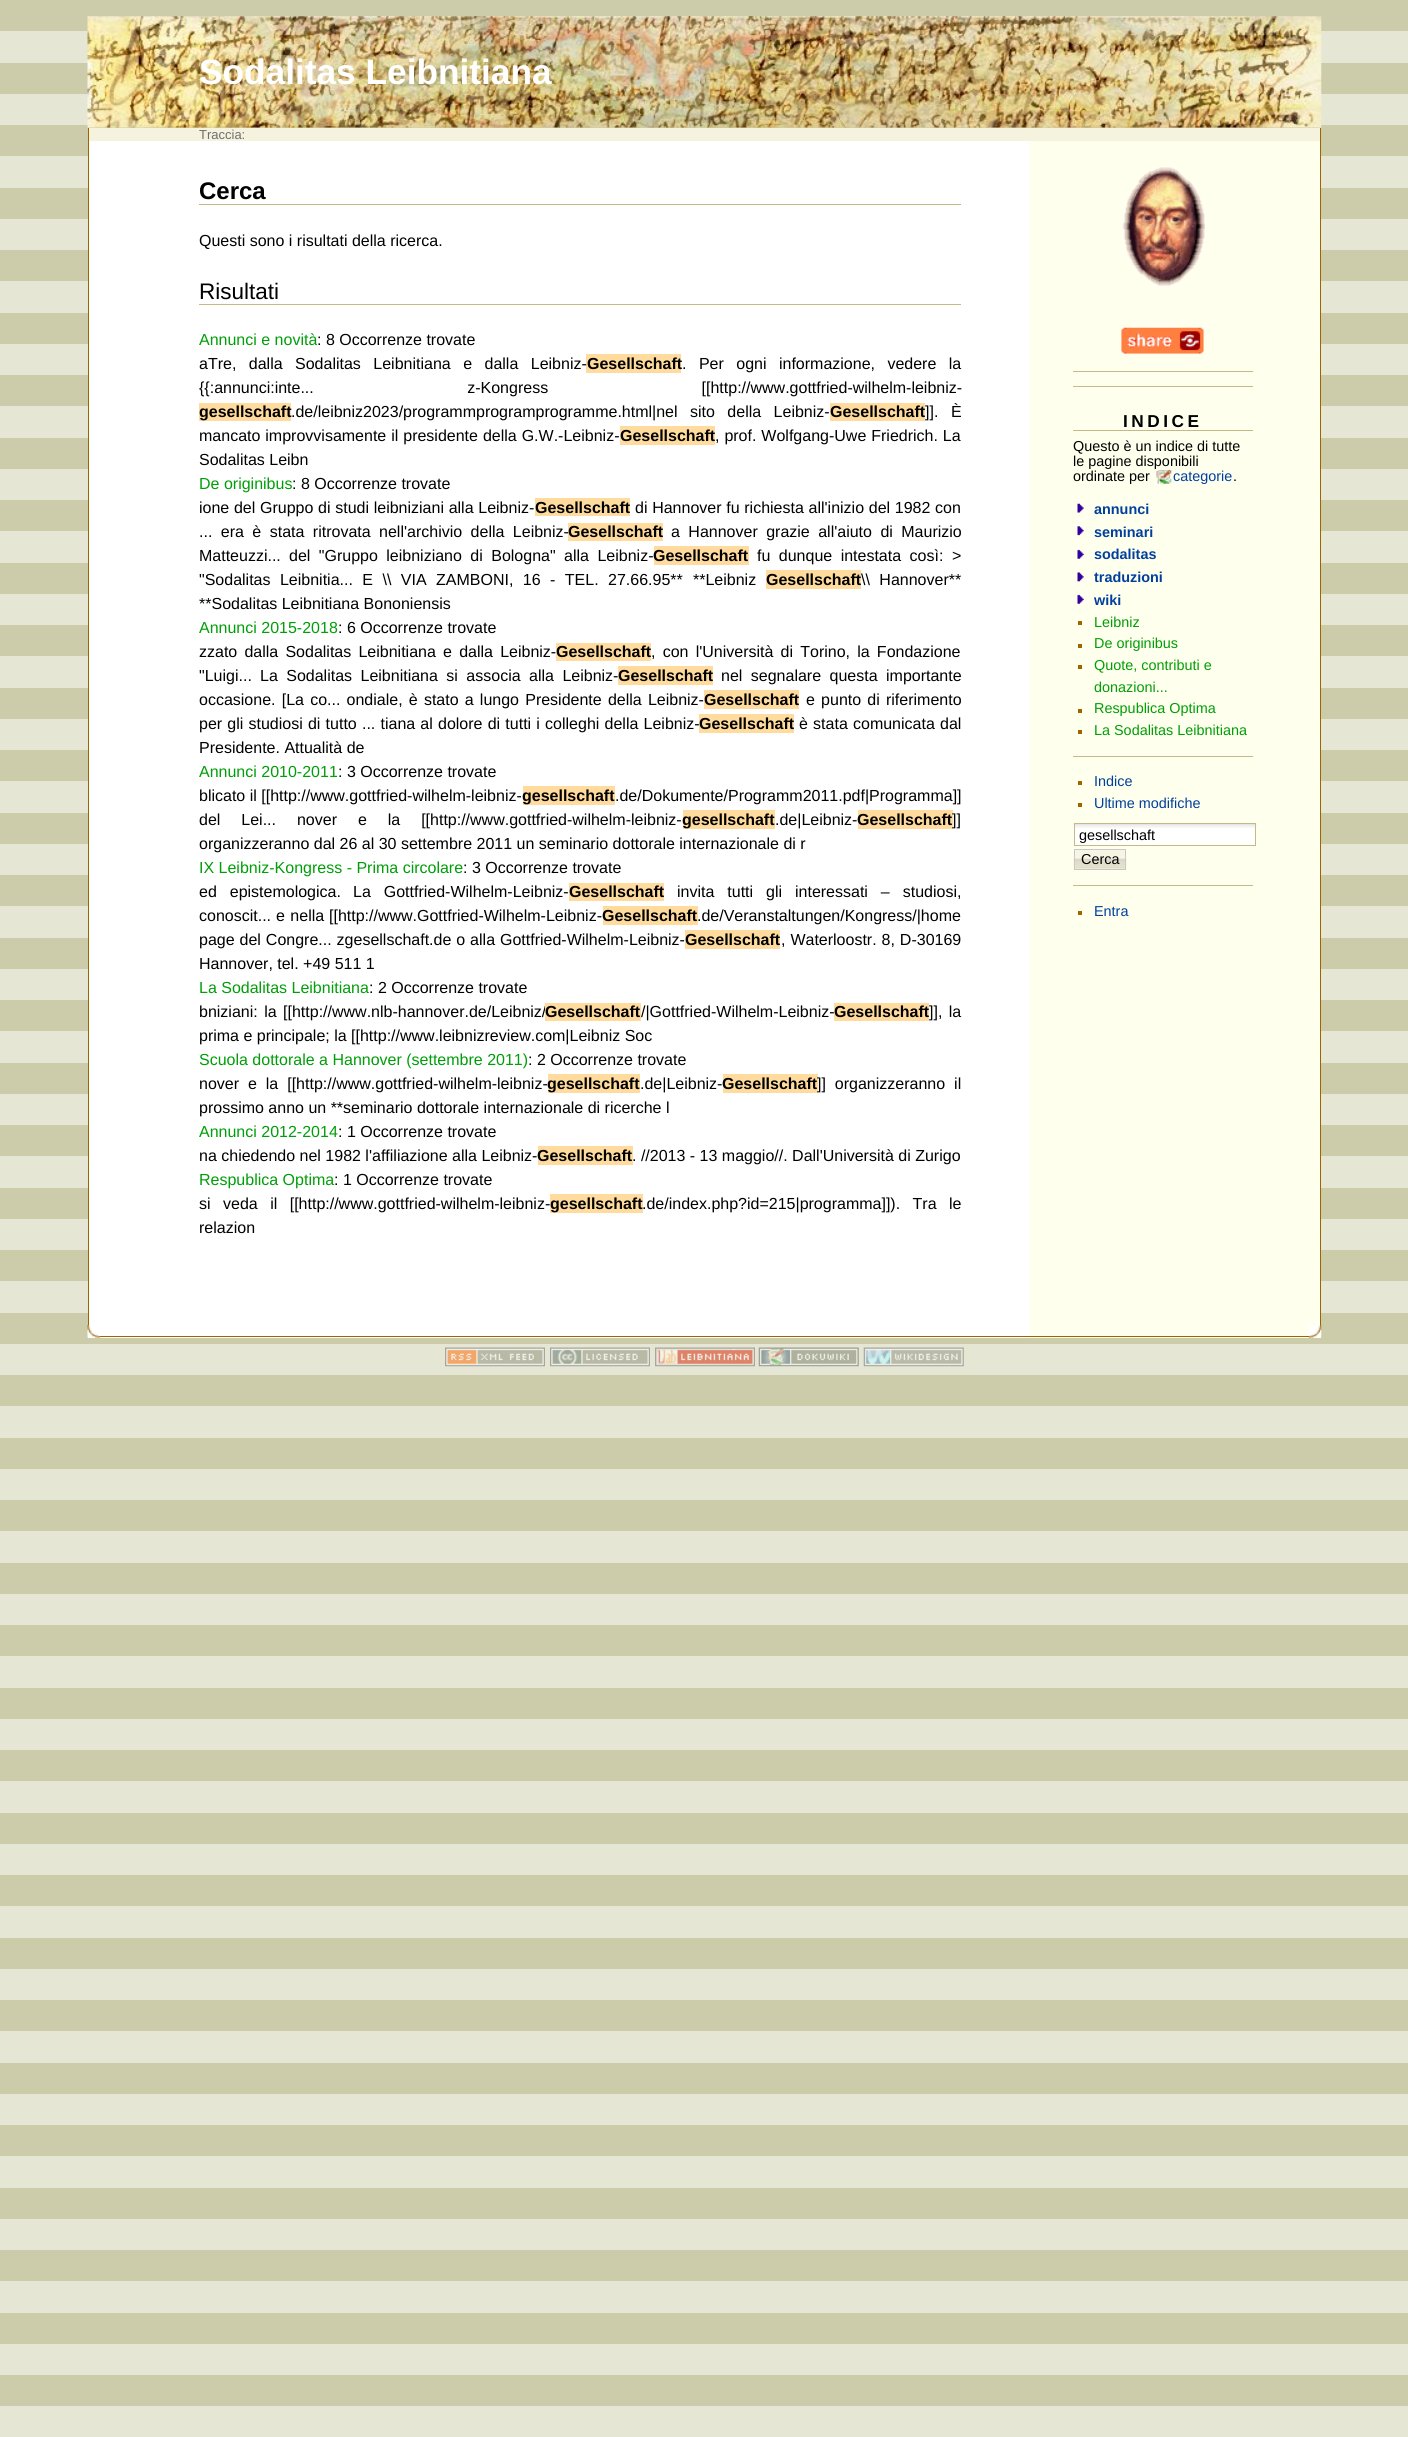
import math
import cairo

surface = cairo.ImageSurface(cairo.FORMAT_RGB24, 1408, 2437)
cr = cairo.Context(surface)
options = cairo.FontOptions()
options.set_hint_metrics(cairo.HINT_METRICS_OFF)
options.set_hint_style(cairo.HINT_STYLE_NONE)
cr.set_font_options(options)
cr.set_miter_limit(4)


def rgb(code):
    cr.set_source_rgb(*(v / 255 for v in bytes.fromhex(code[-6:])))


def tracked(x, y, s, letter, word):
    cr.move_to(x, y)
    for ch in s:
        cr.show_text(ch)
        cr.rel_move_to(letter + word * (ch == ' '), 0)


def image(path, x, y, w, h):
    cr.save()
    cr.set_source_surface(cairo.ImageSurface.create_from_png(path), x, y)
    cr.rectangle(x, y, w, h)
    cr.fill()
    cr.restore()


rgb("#ccccaa")
cr.paint()
image("img/1.png", 0, 31, 1408, 2406)
image("img/2.png", 87, 16, 1235, 112)
for x, y, w, h, color in [
    (1320, 128, 1, 1197, "#9e6400"),
    (88, 128, 1, 1197, "#9e6400"),
    (89, 128, 1231, 13, "#f5f2de"),
    (89, 141, 941, 1184, "#ffffff"),
    (199, 204, 762, 1, "#c6b887"),
    (199, 304, 762, 1, "#c6b887"),
    (586, 354, 95, 19, "#ffdb9e"),
    (199, 403, 92, 18, "#ffdb9e"),
    (830, 403, 95, 18, "#ffdb9e"),
    (620, 426, 95, 19, "#ffdb9e"),
    (535, 498, 95, 18, "#ffdb9e"),
    (568, 523, 95, 18, "#ffdb9e"),
    (654, 546, 95, 19, "#ffdb9e"),
    (766, 570, 95, 19, "#ffdb9e"),
    (556, 643, 95, 18, "#ffdb9e"),
    (618, 666, 95, 19, "#ffdb9e"),
    (704, 690, 95, 19, "#ffdb9e"),
    (699, 714, 95, 19, "#ffdb9e"),
    (523, 786, 92, 19, "#ffdb9e"),
    (683, 810, 92, 19, "#ffdb9e"),
    (858, 810, 95, 19, "#ffdb9e"),
    (569, 883, 95, 18, "#ffdb9e"),
    (603, 906, 95, 19, "#ffdb9e"),
    (685, 930, 95, 19, "#ffdb9e"),
    (834, 1003, 95, 18, "#ffdb9e"),
    (548, 1074, 92, 19, "#ffdb9e"),
    (723, 1074, 95, 19, "#ffdb9e"),
    (538, 1146, 95, 19, "#ffdb9e"),
    (550, 1194, 93, 19, "#ffdb9e"),
    (1030, 141, 290, 1184, "#ffffed"),
]:
    rgb(color)
    cr.rectangle(x, y, w, h)
    cr.fill()
image("img/3.png", 1122, 167, 83, 120)
image("img/4.png", 1121, 327, 83, 27)
for x, y, w, h, color in [
    (1073, 371, 180, 1, "#c6b887"),
    (1073, 386, 180, 1, "#c6b887"),
    (1073, 430, 180, 1, "#c6b887"),
]:
    rgb(color)
    cr.rectangle(x, y, w, h)
    cr.fill()
image("img/5.png", 1156, 469, 16, 15)
image("img/6.png", 1077, 503, 7, 10)
image("img/7.png", 1077, 526, 7, 10)
image("img/8.png", 1077, 549, 7, 10)
image("img/9.png", 1077, 572, 7, 10)
image("img/8.png", 1077, 594, 7, 10)
for x, y, w, h, color in [
    (1078, 621, 4, 4, "#9e6400"),
    (1078, 644, 4, 4, "#9e6400"),
    (1078, 665, 4, 4, "#9e6400"),
    (1078, 709, 4, 4, "#9e6400"),
    (1078, 730, 4, 4, "#9e6400"),
    (1073, 756, 180, 1, "#c6b887"),
    (1078, 781, 4, 4, "#9e6400"),
    (1078, 803, 4, 4, "#9e6400"),
    (1075, 824, 180, 21, "#ffffff"),
]:
    rgb(color)
    cr.rectangle(x, y, w, h)
    cr.fill()
image("img/10.png", 1073, 824, 184, 4)
cr.rectangle(1074.5, 823.5, 181, 22)
rgb("#c6b887")
cr.set_line_width(1)
cr.stroke()
rgb("#f5f2de")
cr.rectangle(1075, 850, 50, 19)
cr.fill()
image("img/11.png", 1073, 849, 54, 20)
cr.rectangle(1074.5, 849.5, 51, 20)
rgb("#c8c8c8")
cr.stroke()
for x, y, w, h, color in [
    (1073, 885, 180, 1, "#c6b887"),
    (1078, 911, 4, 4, "#9e6400"),
    (88, 1325, 942, 13, "#ffffff"),
]:
    rgb(color)
    cr.rectangle(x, y, w, h)
    cr.fill()
image("img/12.png", 87, 1325, 13, 13)
rgb("#9e6400")
cr.rectangle(100, 1336, 930, 1)
cr.fill()
rgb("#ffffed")
cr.rectangle(1030, 1325, 291, 13)
cr.fill()
image("img/13.png", 1308, 1325, 14, 13)
rgb("#9e6400")
cr.rectangle(1030, 1336, 279, 1)
cr.fill()
image("img/14.png", 445, 1347, 100, 20)
image("img/15.png", 550, 1347, 100, 20)
image("img/16.png", 655, 1347, 100, 20)
image("img/17.png", 758, 1347, 101, 20)
image("img/18.png", 863, 1347, 101, 20)
cr.select_font_face("Liberation Sans", cairo.FONT_SLANT_NORMAL, cairo.FONT_WEIGHT_BOLD)
cr.set_font_size(35.25)
rgb("#ffffff")
cr.move_to(199, 84)
cr.show_text("Sodalitas Leibnitiana")
cr.select_font_face("Liberation Sans")
cr.set_font_size(13)
rgb("#6f6f6f")
cr.move_to(199, 139)
cr.show_text("Traccia:")
cr.select_font_face("Liberation Sans", cairo.FONT_SLANT_NORMAL, cairo.FONT_WEIGHT_BOLD)
cr.set_font_size(24)
rgb("#000000")
cr.move_to(199, 199)
cr.show_text("Cerca")
cr.select_font_face("Liberation Sans")
cr.set_font_size(16)
cr.move_to(199, 246)
cr.show_text("Questi sono i risultati della ricerca.")
cr.set_font_size(22.5)
cr.move_to(199, 299)
cr.show_text("Risultati")
cr.set_font_size(16)
rgb("#009e08")
cr.move_to(199, 345)
cr.show_text("Annunci e novità")
rgb("#000000")
cr.move_to(317, 345)
cr.show_text(": 8 Occorrenze trovate")
tracked(199, 369, "aTre, dalla Sodalitas Leibnitiana e dalla Leibniz-", 0, 8)
cr.select_font_face("Liberation Sans", cairo.FONT_SLANT_NORMAL, cairo.FONT_WEIGHT_BOLD)
cr.move_to(587, 369)
cr.show_text("Gesellschaft")
cr.select_font_face("Liberation Sans")
tracked(682, 369, ". Per ogni informazione, vedere la", 0, 8)
tracked(199, 393, "{{:annunci:inte... z-Kongress [[http://www.gottfried-wilhelm-leibniz-", 0, 149)
cr.select_font_face("Liberation Sans", cairo.FONT_SLANT_NORMAL, cairo.FONT_WEIGHT_BOLD)
cr.move_to(199, 417)
cr.show_text("gesellschaft")
cr.select_font_face("Liberation Sans")
tracked(291, 417, ".de/leibniz2023/programmprogramprogramme.html|nel sito della Leibniz-", 0, 8)
cr.select_font_face("Liberation Sans", cairo.FONT_SLANT_NORMAL, cairo.FONT_WEIGHT_BOLD)
cr.move_to(830, 417)
cr.show_text("Gesellschaft")
cr.select_font_face("Liberation Sans")
cr.move_to(925, 417)
cr.show_text("]].")
cr.move_to(951, 417)
cr.show_text("È")
tracked(199, 441, "mancato improvvisamente il presidente della G.W.-Leibniz-", 0, 0.5)
cr.select_font_face("Liberation Sans", cairo.FONT_SLANT_NORMAL, cairo.FONT_WEIGHT_BOLD)
cr.move_to(620, 441)
cr.show_text("Gesellschaft")
cr.select_font_face("Liberation Sans")
tracked(715, 441, ", prof. Wolfgang-Uwe Friedrich. La", 0, 0.5)
cr.move_to(199, 465)
cr.show_text("Sodalitas Leibn")
rgb("#009e08")
cr.move_to(199, 489)
cr.show_text("De originibus")
rgb("#000000")
cr.move_to(292, 489)
cr.show_text(": 8 Occorrenze trovate")
tracked(199, 513, "ione del Gruppo di studi leibniziani alla Leibniz-", 0, 0.25)
cr.select_font_face("Liberation Sans", cairo.FONT_SLANT_NORMAL, cairo.FONT_WEIGHT_BOLD)
cr.move_to(535, 513)
cr.show_text("Gesellschaft")
cr.select_font_face("Liberation Sans")
tracked(635, 513, "di Hannover fu richiesta all'inizio del 1982 con", 0, 0.25)
tracked(199, 537, "... era è stata ritrovata nell'archivio della Leibniz-", 0, 4)
cr.select_font_face("Liberation Sans", cairo.FONT_SLANT_NORMAL, cairo.FONT_WEIGHT_BOLD)
cr.move_to(568, 537)
cr.show_text("Gesellschaft")
cr.select_font_face("Liberation Sans")
tracked(671, 537, "a Hannover grazie all'aiuto di Maurizio", 0, 4)
cr.move_to(199, 561)
cr.show_text("Matteuzzi...")
tracked(289, 561, "del \"Gruppo leibniziano di Bologna\" alla Leibniz-", 0, 4)
cr.select_font_face("Liberation Sans", cairo.FONT_SLANT_NORMAL, cairo.FONT_WEIGHT_BOLD)
cr.move_to(653, 561)
cr.show_text("Gesellschaft")
cr.select_font_face("Liberation Sans")
tracked(757, 561, "fu dunque intestata così:", 0, 4)
cr.move_to(952, 561)
cr.show_text(">")
tracked(199, 585, "\"Sodalitas Leibnitia... E \\\\ VIA ZAMBONI, 16 - TEL. 27.66.95**", 0, 5)
cr.move_to(693, 585)
cr.show_text("**Leibniz")
cr.select_font_face("Liberation Sans", cairo.FONT_SLANT_NORMAL, cairo.FONT_WEIGHT_BOLD)
cr.move_to(766, 585)
cr.show_text("Gesellschaft")
cr.select_font_face("Liberation Sans")
tracked(861, 585, "\\\\ Hannover**", 0, 5)
cr.move_to(199, 609)
cr.show_text("**Sodalitas Leibnitiana Bononiensis")
rgb("#009e08")
cr.move_to(199, 633)
cr.show_text("Annunci 2015-2018")
rgb("#000000")
cr.move_to(338, 633)
cr.show_text(": 6 Occorrenze trovate")
tracked(199, 657, "zzato dalla Sodalitas Leibnitiana e dalla Leibniz-", 0, 2.75)
cr.select_font_face("Liberation Sans", cairo.FONT_SLANT_NORMAL, cairo.FONT_WEIGHT_BOLD)
cr.move_to(556, 657)
cr.show_text("Gesellschaft")
cr.select_font_face("Liberation Sans")
tracked(651, 657, ", con l'Università di Torino, la Fondazione", 0, 2.75)
cr.move_to(199, 681)
cr.show_text("\"Luigi...")
tracked(260, 681, "La Sodalitas Leibnitiana si associa alla Leibniz-", 0, 4)
cr.select_font_face("Liberation Sans", cairo.FONT_SLANT_NORMAL, cairo.FONT_WEIGHT_BOLD)
cr.move_to(618, 681)
cr.show_text("Gesellschaft")
cr.select_font_face("Liberation Sans")
tracked(721, 681, "nel segnalare questa importante", 0, 4)
tracked(199, 705, "occasione. [La co... ondiale, è stato a lungo Presidente della Leibniz-", 0, 1.75)
cr.select_font_face("Liberation Sans", cairo.FONT_SLANT_NORMAL, cairo.FONT_WEIGHT_BOLD)
cr.move_to(704, 705)
cr.show_text("Gesellschaft")
cr.select_font_face("Liberation Sans")
tracked(806, 705, "e punto di riferimento", 0, 1.75)
tracked(199, 729, "per gli studiosi di tutto ... tiana al dolore di tutti i colleghi della Leibniz-", 0, 0.75)
cr.select_font_face("Liberation Sans", cairo.FONT_SLANT_NORMAL, cairo.FONT_WEIGHT_BOLD)
cr.move_to(699, 729)
cr.show_text("Gesellschaft")
cr.select_font_face("Liberation Sans")
tracked(799, 729, "è stata comunicata dal", 0, 0.75)
cr.move_to(199, 753)
cr.show_text("Presidente. Attualità de")
rgb("#009e08")
cr.move_to(199, 777)
cr.show_text("Annunci 2010-2011")
rgb("#000000")
cr.move_to(338, 777)
cr.show_text(": 3 Occorrenze trovate")
cr.move_to(199, 801)
cr.show_text("blicato il [[http://www.gottfried-wilhelm-leibniz-")
cr.select_font_face("Liberation Sans", cairo.FONT_SLANT_NORMAL, cairo.FONT_WEIGHT_BOLD)
cr.move_to(522, 801)
cr.show_text("gesellschaft")
cr.select_font_face("Liberation Sans")
cr.move_to(615, 801)
cr.show_text(".de/Dokumente/Programm2011.pdf|Programma]]")
tracked(199, 825, "del Lei... nover e la [[http://www.gottfried-wilhelm-leibniz-", 0, 16.5)
cr.select_font_face("Liberation Sans", cairo.FONT_SLANT_NORMAL, cairo.FONT_WEIGHT_BOLD)
cr.move_to(682, 825)
cr.show_text("gesellschaft")
cr.select_font_face("Liberation Sans")
cr.move_to(775, 825)
cr.show_text(".de|Leibniz-")
cr.select_font_face("Liberation Sans", cairo.FONT_SLANT_NORMAL, cairo.FONT_WEIGHT_BOLD)
cr.move_to(857, 825)
cr.show_text("Gesellschaft")
cr.select_font_face("Liberation Sans")
cr.move_to(952, 825)
cr.show_text("]]")
cr.move_to(199, 849)
cr.show_text("organizzeranno dal 26 al 30 settembre 2011 un seminario dottorale internazionale di r")
rgb("#009e08")
cr.move_to(199, 873)
cr.show_text("IX Leibniz-Kongress - Prima circolare")
rgb("#000000")
cr.move_to(463, 873)
cr.show_text(": 3 Occorrenze trovate")
tracked(199, 897, "ed epistemologica.", 0, 8.5)
tracked(353, 897, "La Gottfried-Wilhelm-Leibniz-", 0, 8.5)
cr.select_font_face("Liberation Sans", cairo.FONT_SLANT_NORMAL, cairo.FONT_WEIGHT_BOLD)
cr.move_to(569, 897)
cr.show_text("Gesellschaft")
cr.select_font_face("Liberation Sans")
tracked(677, 897, "invita tutti gli interessati – studiosi,", 0, 8.5)
cr.move_to(199, 921)
cr.show_text("conoscit...")
tracked(276, 921, "e nella", 0, 1)
cr.move_to(329, 921)
cr.show_text("[[http://www.Gottfried-Wilhelm-Leibniz-")
cr.select_font_face("Liberation Sans", cairo.FONT_SLANT_NORMAL, cairo.FONT_WEIGHT_BOLD)
cr.move_to(602, 921)
cr.show_text("Gesellschaft")
cr.select_font_face("Liberation Sans")
cr.move_to(697, 921)
cr.show_text(".de/Veranstaltungen/Kongress/|home")
tracked(199, 945, "page del Congre... zgesellschaft.de o alla Gottfried-Wilhelm-Leibniz-", 0, 0.5)
cr.select_font_face("Liberation Sans", cairo.FONT_SLANT_NORMAL, cairo.FONT_WEIGHT_BOLD)
cr.move_to(685, 945)
cr.show_text("Gesellschaft")
cr.select_font_face("Liberation Sans")
tracked(781, 945, ", Waterloostr. 8, D-30169", 0, 0.5)
cr.move_to(199, 969)
cr.show_text("Hannover, tel. +49 511 1")
rgb("#009e08")
cr.move_to(199, 993)
cr.show_text("La Sodalitas Leibnitiana")
rgb("#000000")
cr.move_to(369, 993)
cr.show_text(": 2 Occorrenze trovate")
tracked(199, 1017, "bniziani: la [[http://www.nlb-hannover.de/Leibniz/", 0, 2)
rgb("#ffdb9e")
cr.rectangle(545, 1003, 96, 18)
cr.fill()
cr.select_font_face("Liberation Sans", cairo.FONT_SLANT_NORMAL, cairo.FONT_WEIGHT_BOLD)
rgb("#000000")
cr.move_to(545, 1017)
cr.show_text("Gesellschaft")
cr.select_font_face("Liberation Sans")
cr.move_to(641, 1017)
cr.show_text("/|Gottfried-Wilhelm-Leibniz-")
cr.select_font_face("Liberation Sans", cairo.FONT_SLANT_NORMAL, cairo.FONT_WEIGHT_BOLD)
cr.move_to(834, 1017)
cr.show_text("Gesellschaft")
cr.select_font_face("Liberation Sans")
tracked(929, 1017, "]], la", 0, 2)
cr.move_to(199, 1041)
cr.show_text("prima e principale; la [[http://www.leibnizreview.com|Leibniz Soc")
rgb("#009e08")
cr.move_to(199, 1065)
cr.show_text("Scuola dottorale a Hannover (settembre 2011)")
rgb("#000000")
cr.move_to(528, 1065)
cr.show_text(": 2 Occorrenze trovate")
tracked(199, 1089, "nover e la [[http://www.gottfried-wilhelm-leibniz-", 0, 4.5)
cr.select_font_face("Liberation Sans", cairo.FONT_SLANT_NORMAL, cairo.FONT_WEIGHT_BOLD)
cr.move_to(547, 1089)
cr.show_text("gesellschaft")
cr.select_font_face("Liberation Sans")
cr.move_to(640, 1089)
cr.show_text(".de|Leibniz-")
cr.select_font_face("Liberation Sans", cairo.FONT_SLANT_NORMAL, cairo.FONT_WEIGHT_BOLD)
cr.move_to(722, 1089)
cr.show_text("Gesellschaft")
cr.select_font_face("Liberation Sans")
tracked(817, 1089, "]] organizzeranno il", 0, 4.5)
cr.move_to(199, 1113)
cr.show_text("prossimo anno un **seminario dottorale internazionale di ricerche l")
rgb("#009e08")
cr.move_to(199, 1137)
cr.show_text("Annunci 2012-2014")
rgb("#000000")
cr.move_to(338, 1137)
cr.show_text(": 1 Occorrenze trovate")
cr.move_to(199, 1161)
cr.show_text("na chiedendo nel 1982 l'affiliazione alla Leibniz-")
cr.select_font_face("Liberation Sans", cairo.FONT_SLANT_NORMAL, cairo.FONT_WEIGHT_BOLD)
cr.move_to(537, 1161)
cr.show_text("Gesellschaft")
cr.select_font_face("Liberation Sans")
cr.move_to(632, 1161)
cr.show_text(". //2013 - 13 maggio//. Dall'Università di Zurigo")
rgb("#009e08")
cr.move_to(199, 1185)
cr.show_text("Respublica Optima")
rgb("#000000")
cr.move_to(334, 1185)
cr.show_text(": 1 Occorrenze trovate")
tracked(199, 1209, "si veda il [[http://www.gottfried-wilhelm-leibniz-", 0, 8)
cr.select_font_face("Liberation Sans", cairo.FONT_SLANT_NORMAL, cairo.FONT_WEIGHT_BOLD)
cr.move_to(550, 1209)
cr.show_text("gesellschaft")
cr.select_font_face("Liberation Sans")
tracked(642, 1209, ".de/index.php?id=215|programma]]). Tra le", 0, 8)
cr.move_to(199, 1233)
cr.show_text("relazion")
cr.select_font_face("Liberation Sans", cairo.FONT_SLANT_NORMAL, cairo.FONT_WEIGHT_BOLD)
cr.set_font_size(17.25)
tracked(1123, 427, "INDICE", 3.5, 0)
cr.select_font_face("Liberation Sans")
cr.set_font_size(14.4)
for x, y, s in [
    (1073, 451, "Questo è un indice di tutte"),
    (1073, 466, "le pagine disponibili"),
    (1073, 481, "ordinate per"),
]:
    cr.move_to(x, y)
    cr.show_text(s)
rgb("#003f9e")
cr.move_to(1173, 481)
cr.show_text("categorie")
rgb("#000000")
cr.move_to(1233, 481)
cr.show_text(".")
cr.select_font_face("Liberation Sans", cairo.FONT_SLANT_NORMAL, cairo.FONT_WEIGHT_BOLD)
rgb("#003f9e")
for x, y, s in [
    (1094, 514, "annunci"),
    (1094, 537, "seminari"),
    (1094, 559, "sodalitas"),
    (1094, 582, "traduzioni"),
    (1094, 605, "wiki"),
]:
    cr.move_to(x, y)
    cr.show_text(s)
cr.select_font_face("Liberation Sans")
rgb("#009e08")
for x, y, s in [
    (1094, 627, "Leibniz"),
    (1094, 648, "De originibus"),
    (1094, 670, "Quote, contributi e"),
    (1094, 692, "donazioni..."),
    (1094, 713, "Respublica Optima"),
    (1094, 735, "La Sodalitas Leibnitiana"),
]:
    cr.move_to(x, y)
    cr.show_text(s)
rgb("#003f9e")
cr.move_to(1094, 786)
cr.show_text("Indice")
cr.move_to(1094, 808)
cr.show_text("Ultime modifiche")
rgb("#000000")
cr.move_to(1079, 840)
cr.show_text("gesellschaft")
cr.move_to(1081, 864)
cr.show_text("Cerca")
rgb("#003f9e")
cr.move_to(1094, 916)
cr.show_text("Entra")
surface.write_to_png("page.png")
